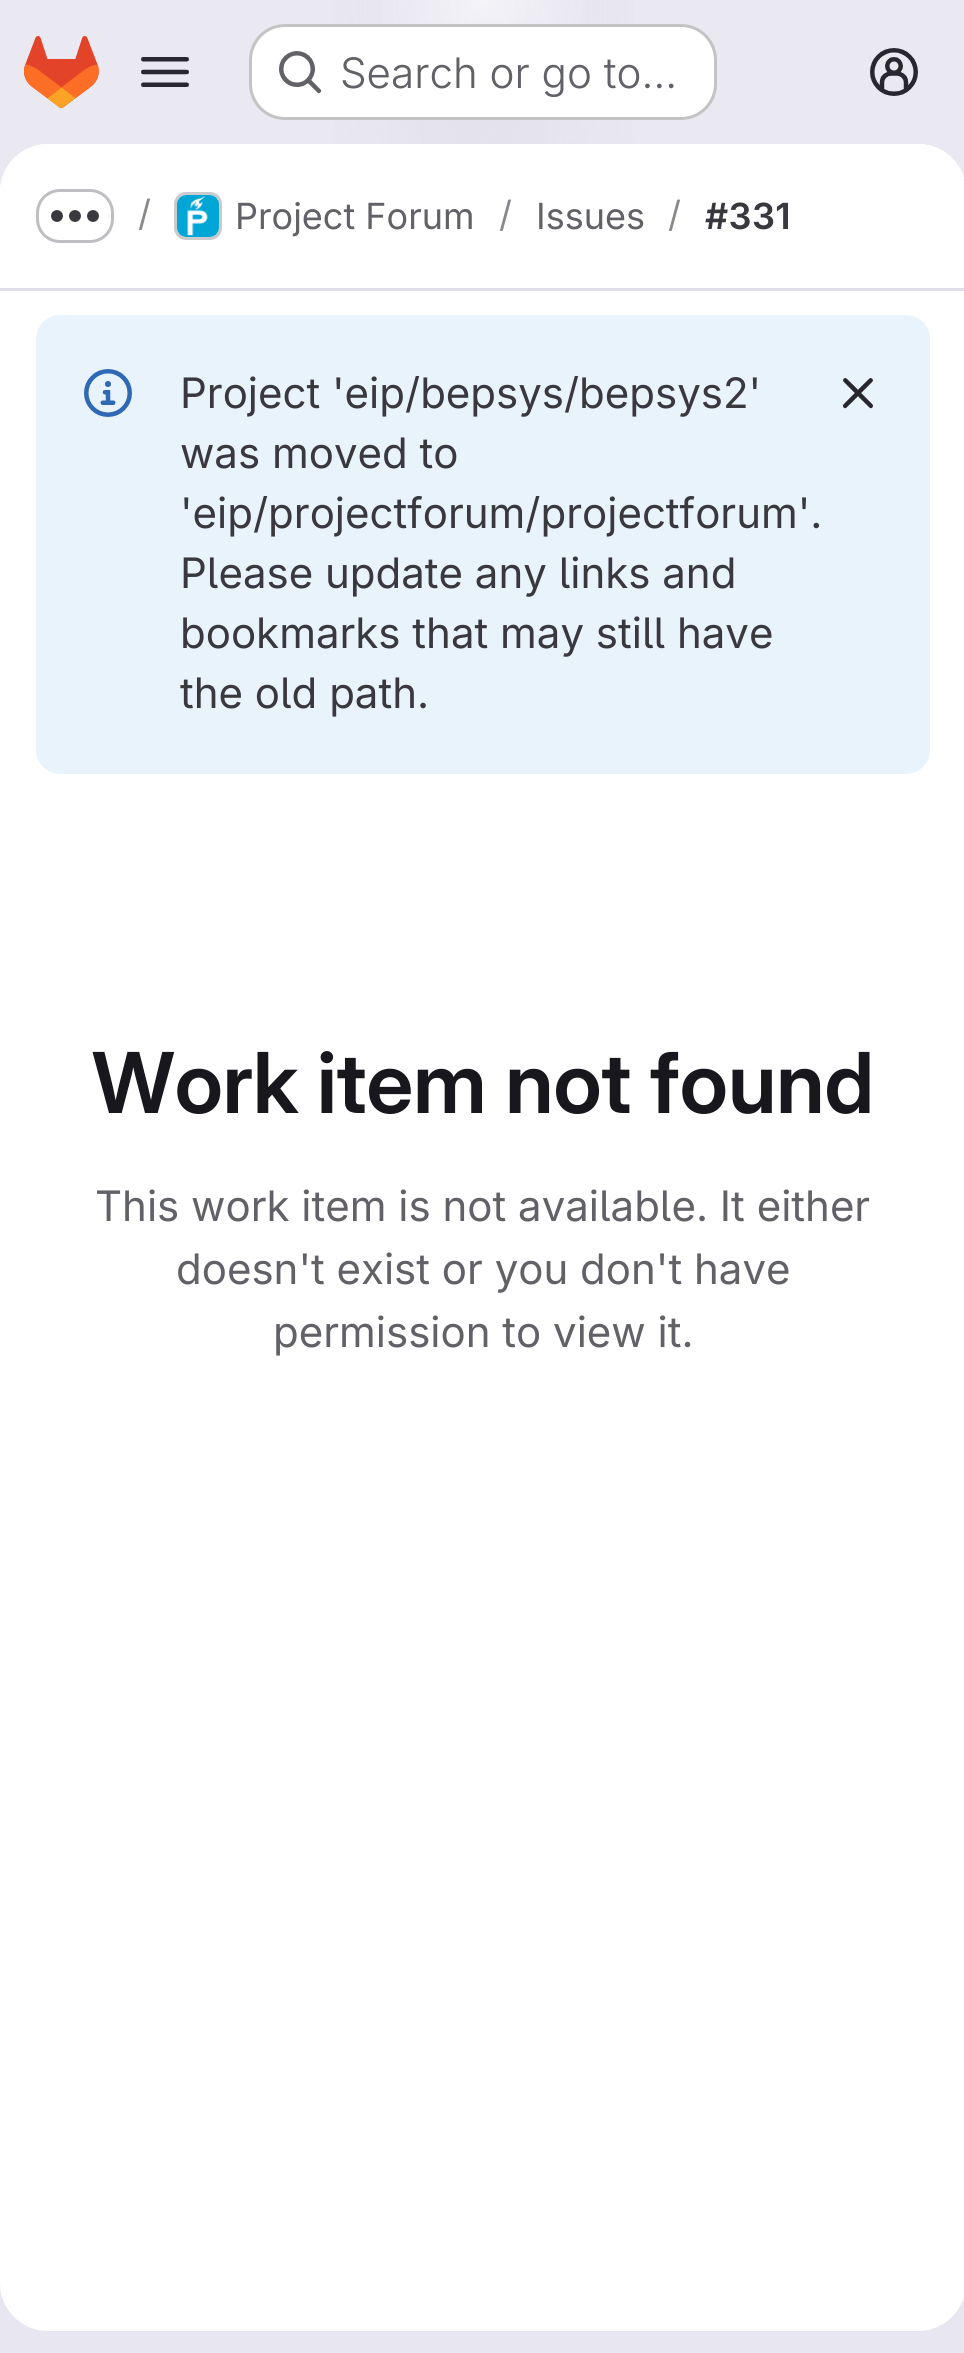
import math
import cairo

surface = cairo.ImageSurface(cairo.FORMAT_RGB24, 964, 2353)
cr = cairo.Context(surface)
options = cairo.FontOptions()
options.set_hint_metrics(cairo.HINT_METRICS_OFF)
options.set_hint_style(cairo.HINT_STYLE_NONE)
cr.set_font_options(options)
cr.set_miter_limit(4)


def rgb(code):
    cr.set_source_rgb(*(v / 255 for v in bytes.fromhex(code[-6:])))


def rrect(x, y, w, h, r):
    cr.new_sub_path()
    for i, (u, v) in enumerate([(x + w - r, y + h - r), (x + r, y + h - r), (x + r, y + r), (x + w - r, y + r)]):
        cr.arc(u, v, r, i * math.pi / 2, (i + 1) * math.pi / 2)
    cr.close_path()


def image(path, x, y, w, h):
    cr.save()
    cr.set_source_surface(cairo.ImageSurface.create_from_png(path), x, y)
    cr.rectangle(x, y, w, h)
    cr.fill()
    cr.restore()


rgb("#ffffff")
cr.paint()
gradient = cairo.LinearGradient(699, 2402, 267, -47)
gradient.add_color_stop_rgba(0, 0.91, 0.902, 0.941, 1)
gradient.add_color_stop_rgba(0.7, 0.918, 0.914, 0.949, 1)
cr.set_source(gradient)
cr.rectangle(0, 0, 964, 2353)
cr.fill()
gradient = cairo.RadialGradient(0, 0, 0, 0, 0, 1)
gradient.set_matrix(cairo.Matrix(1 / 483, 0, 0, 1 / 2355, -1 * 483 / 483, -1 * 0 / 2355))
gradient.add_color_stop_rgba(0, 0.894, 0.886, 0.929, 1)
gradient.add_color_stop_rgba(0.43, 0.894, 0.886, 0.929, 0)
cr.set_source(gradient)
cr.rectangle(333, 0, 300, 144)
cr.fill()
gradient = cairo.RadialGradient(0, 0, 0, 0, 0, 1)
gradient.set_matrix(cairo.Matrix(1 / 483, 0, 0, 1 / 2355, -1 * 483 / 483, -1 * 0 / 2355))
gradient.add_color_stop_rgba(0, 0.894, 0.886, 0.925, 1)
gradient.add_color_stop_rgba(0.31, 0.894, 0.886, 0.925, 0)
cr.set_source(gradient)
cr.rectangle(421, 22, 124, 122)
cr.fill()
gradient = cairo.RadialGradient(483, 0, 0, 483, 0, 2404)
gradient.add_color_stop_rgba(0, 1, 1, 1, 0.6)
gradient.add_color_stop_rgba(0.05, 1, 1, 1, 0)
cr.set_source(gradient)
cr.rectangle(381, 0, 204, 24)
cr.fill()
image("img/1.png", 24, 36, 75, 72)
image("img/2.png", 141, 57, 48, 30)
rgb("#ffffff")
rrect(249, 24, 468, 96, 36)
cr.fill()
rrect(250.5, 25.5, 465, 93, 34.5)
cr.set_source_rgba(0.02, 0.02, 0.024, 0.24)
cr.set_line_width(3)
cr.stroke()
image("img/3.png", 279, 51, 43, 43)
image("img/4.png", 870, 48, 48, 48)
rgb("#ffffff")
rrect(0, 144, 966, 2187, 48)
cr.fill()
cr.new_path()
cr.move_to(48, 144)
cr.line_to(918, 144)
cr.curve_to(944.5, 144, 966, 165.5, 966, 192)
cr.line_to(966, 291)
cr.line_to(0, 291)
cr.line_to(0, 192)
cr.curve_to(0, 165.5, 21.5, 144, 48, 144)
cr.close_path()
cr.fill()
rgb("#e1dfec")
cr.rectangle(0, 288, 964, 3)
cr.fill()
rrect(37.5, 190.5, 75, 51, 22.5)
rgb("#bfbfc3")
cr.stroke()
image("img/5.png", 51, 210, 48, 12)
rrect(175.5, 193.5, 45, 45, 10.5)
rgb("#dcdcde")
cr.stroke()
image("img/6.png", 177, 195, 42, 42)
rrect(175.5, 193.5, 45, 45, 10.5)
cr.set_source_rgba(0.02, 0.02, 0.024, 0.08)
cr.stroke()
rgb("#e9f3fc")
rrect(36, 315, 894, 459, 24)
cr.fill()
image("img/7.png", 84, 369, 48, 48)
image("img/8.png", 842, 378, 32, 31)
cr.select_font_face("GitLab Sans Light")
cr.set_font_size(42)
rgb("#626168")
cr.move_to(340, 88)
cr.show_text("Search or go to…")
cr.select_font_face("GitLab Sans")
cr.set_font_size(36)
rgb("#89888d")
cr.move_to(138, 226)
cr.show_text("/")
rgb("#626168")
cr.move_to(235, 229)
cr.show_text("Project Forum")
rgb("#89888d")
cr.move_to(499, 227)
cr.show_text("/")
rgb("#626168")
cr.move_to(536, 229)
cr.show_text("Issues")
rgb("#89888d")
cr.move_to(668, 227)
cr.show_text("/")
cr.select_font_face("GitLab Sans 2 SemiBold")
rgb("#3a383f")
cr.move_to(705, 229)
cr.show_text("#331")
cr.select_font_face("GitLab Sans")
cr.set_font_size(42)
for x, y, s in [
    (180, 408, "Project 'eip/bepsys/bepsys2'"),
    (180, 468, "was moved to"),
    (180, 528, "'eip/projectforum/projectforum'."),
    (180, 588, "Please update any links and"),
    (180, 648, "bookmarks that may still have"),
    (180, 708, "the old path."),
]:
    cr.move_to(x, y)
    cr.show_text(s)
cr.select_font_face("GitLab Sans SemiBold")
cr.set_font_size(84)
rgb("#18171d")
cr.move_to(92, 1113)
cr.show_text("Work item not found")
cr.select_font_face("GitLab Sans")
cr.set_font_size(42)
rgb("#626168")
for x, y, s in [
    (95, 1221, "This work item is not available. It either"),
    (176, 1284, "doesn't exist or you don't have"),
    (273, 1347, "permission to view it."),
]:
    cr.move_to(x, y)
    cr.show_text(s)
surface.write_to_png("page.png")
